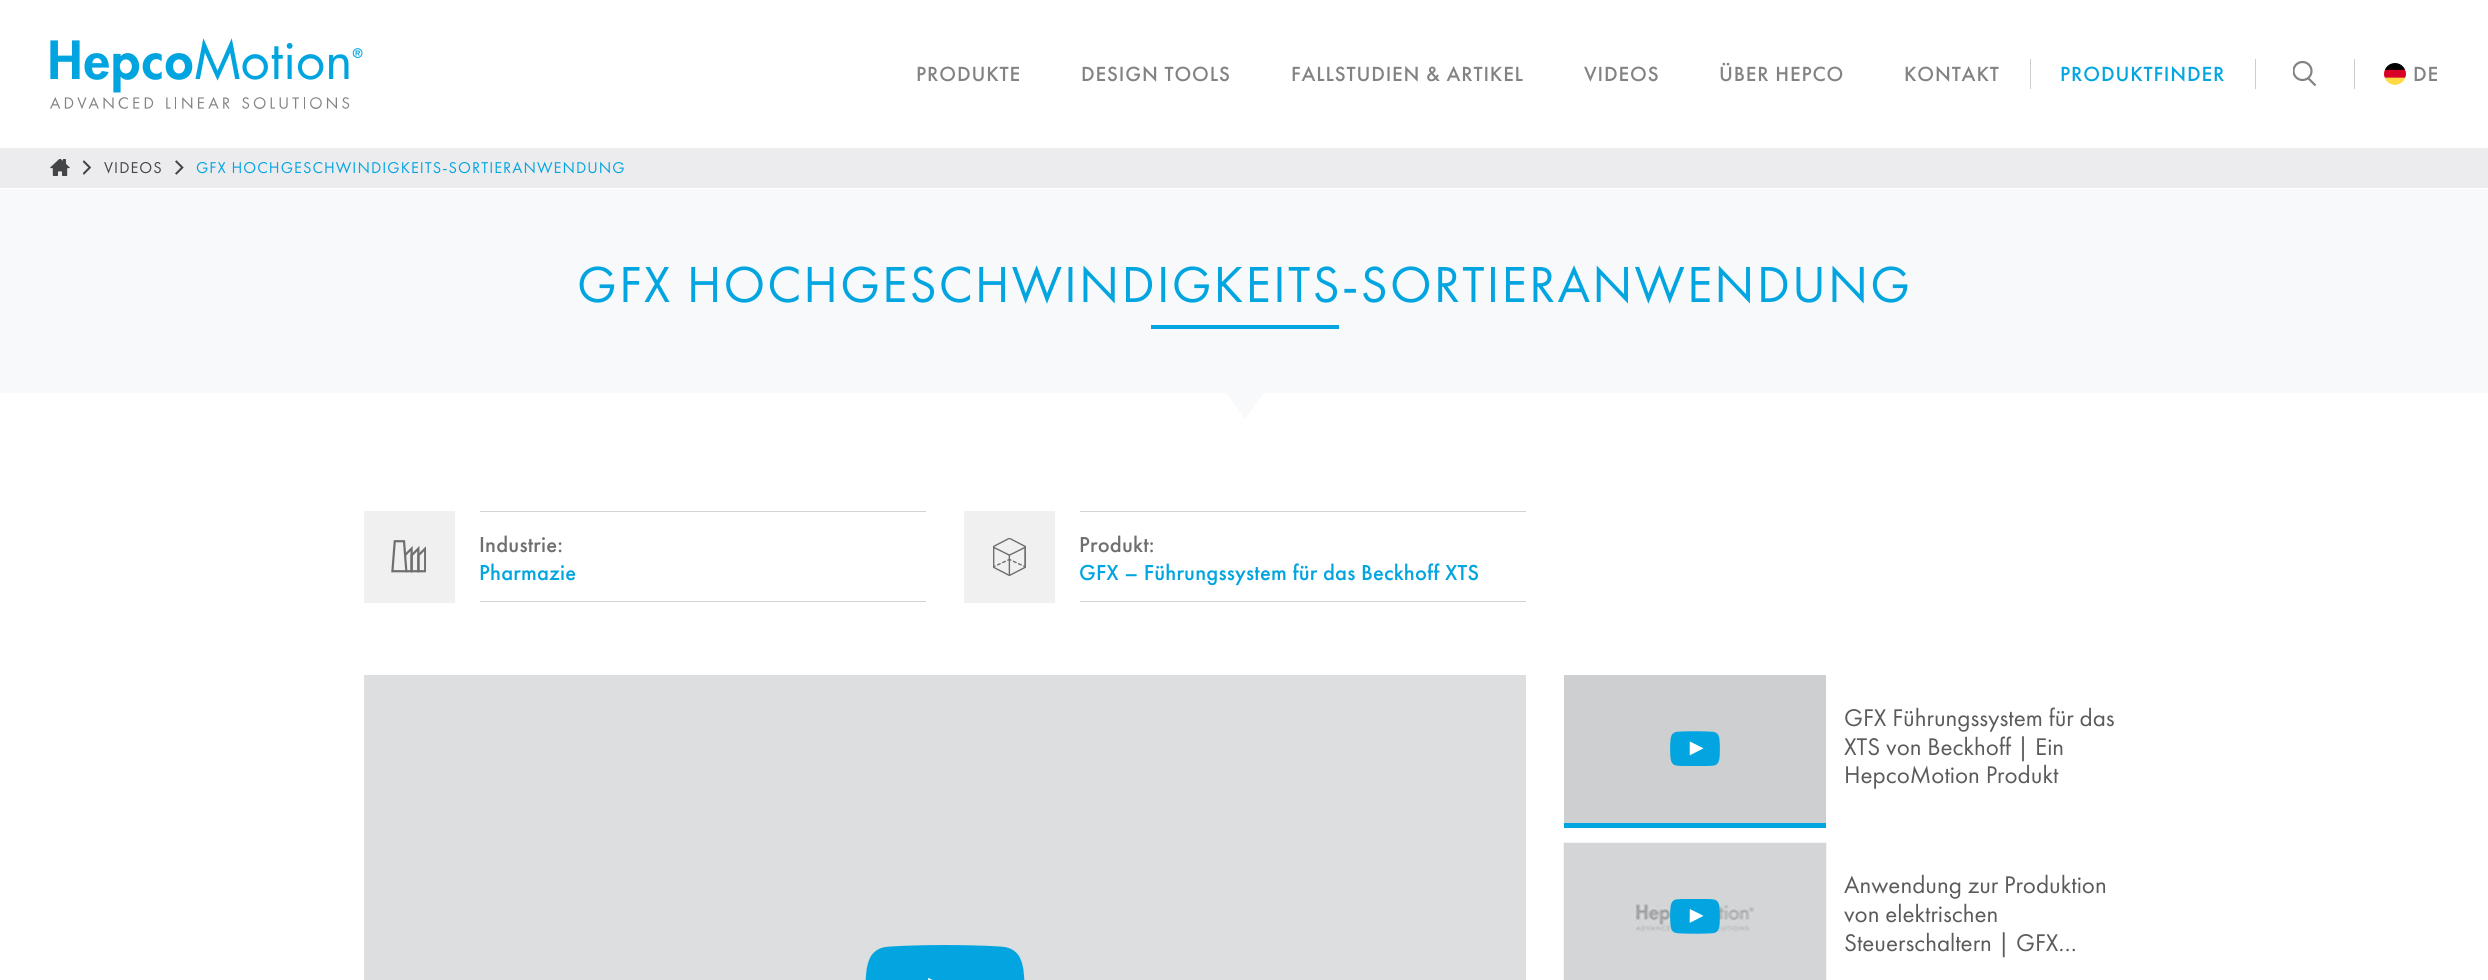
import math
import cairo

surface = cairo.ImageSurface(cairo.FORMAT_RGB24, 2488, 980)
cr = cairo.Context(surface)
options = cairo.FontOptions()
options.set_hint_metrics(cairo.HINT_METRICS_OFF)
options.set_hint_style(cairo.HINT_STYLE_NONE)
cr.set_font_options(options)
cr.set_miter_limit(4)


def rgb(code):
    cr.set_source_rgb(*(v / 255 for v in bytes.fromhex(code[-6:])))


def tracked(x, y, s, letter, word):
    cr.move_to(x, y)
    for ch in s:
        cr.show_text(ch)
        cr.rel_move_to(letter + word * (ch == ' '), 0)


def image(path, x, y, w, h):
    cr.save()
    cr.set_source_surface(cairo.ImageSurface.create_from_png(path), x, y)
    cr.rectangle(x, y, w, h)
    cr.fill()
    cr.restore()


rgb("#ffffff")
cr.paint()
image("img/1.png", 50, 38, 313, 71)
rgb("#cdcdcd")
cr.rectangle(2030, 59, 1, 30)
cr.fill()
cr.rectangle(2255, 59, 1, 30)
cr.fill()
cr.save()
cr.rectangle(2293, 61, 23, 25)
cr.clip()
cr.arc(2302.5, 71, 9, 0, 2 * math.pi)
rgb("#828282")
cr.set_line_width(2.2)
cr.stroke()
cr.restore()
cr.new_path()
cr.move_to(2308, 78)
cr.line_to(2315.5, 85.5)
rgb("#828282")
cr.set_line_width(2.2)
cr.stroke()
rgb("#cdcdcd")
cr.rectangle(2354, 59, 1, 30)
cr.fill()
image("img/2.png", 2384, 63, 22, 22)
rgb("#ececee")
cr.rectangle(0, 148, 2488, 40)
cr.fill()
image("img/3.png", 50, 159, 20, 17)
image("img/4.png", 83, 160, 8, 15)
image("img/5.png", 175, 160, 9, 15)
rgb("#f7f9fb")
cr.rectangle(0, 189, 2488, 204)
cr.fill()
rgb("#02a5df")
cr.rectangle(1151, 325, 188, 4)
cr.fill()
rgb("#f7f9fb")
cr.new_path()
cr.move_to(1226, 392.5)
cr.line_to(1264, 392.5)
cr.line_to(1245, 419)
cr.close_path()
cr.fill()
rgb("#f0f0f0")
cr.rectangle(364, 511, 91, 92)
cr.fill()
image("img/6.png", 391, 540, 35, 33)
for x, y, w, h, color in [
    (480, 511, 446, 1, "#d3d3d3"),
    (480, 601, 446, 1, "#d3d3d3"),
    (964, 511, 91, 92, "#f0f0f0"),
]:
    rgb(color)
    cr.rectangle(x, y, w, h)
    cr.fill()
image("img/7.png", 993, 538, 33, 38)
for x, y, w, h, color in [
    (1080, 511, 446, 1, "#d3d3d3"),
    (1080, 601, 446, 1, "#d3d3d3"),
    (364, 675, 1162, 305, "#dcdedf"),
]:
    rgb(color)
    cr.rectangle(x, y, w, h)
    cr.fill()
image("img/8.png", 865, 945, 160, 35)
rgb("#02a5df")
cr.rectangle(1564, 823, 262, 5)
cr.fill()
rgb("#cdcfd0")
cr.rectangle(1564, 675, 262, 148)
cr.fill()
image("img/9.png", 1670, 731, 50, 35)
image("img/10.png", 1563, 842, 264, 138)
image("img/11.png", 1670, 899, 50, 35)
cr.select_font_face("Futura PT Medium")
cr.set_font_size(21.25)
rgb("#828282")
for x, y, s in [
    (916, 81, "PRODUKTE"),
    (1081, 81, "DESIGN TOOLS"),
    (1291, 81, "FALLSTUDIEN & ARTIKEL"),
    (1584, 81, "VIDEOS"),
    (1719, 81, "ÜBER HEPCO"),
    (1904, 81, "KONTAKT"),
]:
    tracked(x, y, s, 0.85, 0)
rgb("#02a5df")
tracked(2060, 81, "PRODUKTFINDER", 0.85, 0)
rgb("#828282")
tracked(2413, 81, "DE", 0.85, 0)
cr.select_font_face("Futura PT")
cr.set_font_size(16.25)
rgb("#444547")
tracked(104, 173, "VIDEOS", 1.05, 0)
rgb("#02a5df")
tracked(196, 173, "GFX HOCHGESCHWINDIGKEITS-SORTIERANWENDUNG", 1.05, 0)
cr.set_font_size(52.5)
tracked(577, 302, "GFX HOCHGESCHWINDIGKEITS-SORTIERANWENDUNG", 2.1, 0)
cr.select_font_face("Futura PT Medium")
cr.set_font_size(22.5)
rgb("#6e6f71")
tracked(479, 552, "Industrie:", 0.2, 0)
rgb("#02a5df")
tracked(479, 580, "Pharmazie", 0.2, 0)
rgb("#6e6f71")
tracked(1079, 552, "Produkt:", 0.2, 0)
rgb("#02a5df")
tracked(1079, 580, "GFX – Führungssystem für das Beckhoff XTS", 0.2, 0)
cr.select_font_face("Futura PT")
cr.set_font_size(25)
rgb("#5a5b5d")
for x, y, s in [
    (1844, 726, "GFX Führungssystem für das"),
    (1844, 755, "XTS von Beckhoff | Ein"),
    (1844, 783, "HepcoMotion Produkt"),
    (1844, 893, "Anwendung zur Produktion"),
    (1844, 922, "von elektrischen"),
    (1844, 951, "Steuerschaltern | GFX…"),
]:
    cr.move_to(x, y)
    cr.show_text(s)
surface.write_to_png("page.png")
